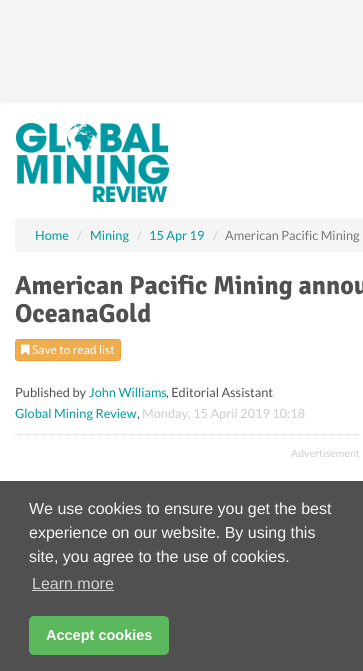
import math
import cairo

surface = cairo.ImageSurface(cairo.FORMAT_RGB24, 363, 671)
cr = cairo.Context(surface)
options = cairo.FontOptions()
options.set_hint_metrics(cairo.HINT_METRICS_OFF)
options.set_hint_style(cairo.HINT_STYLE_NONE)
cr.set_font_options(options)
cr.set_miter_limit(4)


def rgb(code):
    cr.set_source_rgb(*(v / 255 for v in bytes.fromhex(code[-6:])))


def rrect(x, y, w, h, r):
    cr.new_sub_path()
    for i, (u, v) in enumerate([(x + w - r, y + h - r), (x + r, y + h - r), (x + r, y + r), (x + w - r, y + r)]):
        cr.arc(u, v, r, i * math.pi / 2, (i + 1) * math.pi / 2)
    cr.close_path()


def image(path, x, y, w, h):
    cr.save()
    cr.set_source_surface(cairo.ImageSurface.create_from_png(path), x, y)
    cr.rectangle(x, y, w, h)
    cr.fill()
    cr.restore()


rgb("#f4f4f4")
cr.paint()
rgb("#ffffff")
rrect(0, 103, 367, 39, 4)
cr.fill()
cr.rectangle(0, 139, 363, 133)
cr.fill()
image("img/1.png", 16, 123, 153, 79)
rgb("#f5f5f5")
rrect(15, 218, 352, 34, 4)
cr.fill()
rgb("#ffffff")
rrect(0, 268, 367, 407, 4)
cr.fill()
rgb("#f0ad4e")
rrect(15.5, 339.5, 105, 21, 2.5)
cr.fill_preserve()
rgb("#eea236")
cr.set_line_width(1)
cr.stroke()
image("img/2.png", 21, 344, 9, 11)
cr.new_path()
cr.move_to(15, 434.5)
cr.line_to(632, 434.5)
rgb("#dddddd")
cr.set_dash([1, 1])
cr.stroke()
rgb("#505050")
cr.rectangle(0, 481, 363, 190)
cr.fill()
rgb("#d3d3d3")
cr.rectangle(32, 590, 82, 1)
cr.fill()
rgb("#5cb85c")
rrect(29, 616, 140, 39, 5)
cr.fill()
cr.select_font_face("Lato")
cr.set_font_size(12.75)
rgb("#0099a0")
cr.move_to(35, 240)
cr.show_text("Home")
rgb("#cccccc")
cr.move_to(77, 240)
cr.show_text("/")
rgb("#0099a0")
cr.move_to(90, 240)
cr.show_text("Mining")
rgb("#cccccc")
cr.move_to(137, 240)
cr.show_text("/")
rgb("#0099a0")
cr.move_to(149, 240)
cr.show_text("15 Apr 19")
rgb("#cccccc")
cr.move_to(213, 240)
cr.show_text("/")
rgb("#777777")
cr.move_to(225, 240)
cr.show_text("American Pacific Mining")
cr.select_font_face("Signika", cairo.FONT_SLANT_NORMAL, cairo.FONT_WEIGHT_BOLD)
cr.set_font_size(26)
rgb("#505050")
cr.move_to(15, 294)
cr.show_text("American Pacific Mining annou")
cr.move_to(15, 322)
cr.show_text("OceanaGold")
cr.select_font_face("Lato")
cr.set_font_size(12)
rgb("#ffffff")
cr.move_to(32, 354)
cr.show_text("Save to read list")
cr.set_font_size(12.75)
rgb("#505050")
cr.move_to(15, 397)
cr.show_text("Published by")
rgb("#0099a0")
cr.move_to(89, 397)
cr.show_text("John Williams")
rgb("#505050")
cr.move_to(166, 397)
cr.show_text(", Editorial Assistant")
rgb("#0099a0")
cr.move_to(15, 418)
cr.show_text("Global Mining Review")
rgb("#505050")
cr.move_to(137, 418)
cr.show_text(",")
rgb("#cccccc")
cr.move_to(142, 418)
cr.show_text("Monday, 15 April 2019 10:18")
cr.set_font_size(10.5)
cr.move_to(291, 457)
cr.show_text("Advertisement")
cr.select_font_face("Liberation Sans")
cr.set_font_size(16)
rgb("#f4f4f4")
for x, y, s in [
    (29, 514, "We use cookies to ensure you get the best"),
    (29, 538, "experience on our website. By using this"),
    (29, 562, "site, you agree to the use of cookies."),
]:
    cr.move_to(x, y)
    cr.show_text(s)
rgb("#d3d3d3")
cr.move_to(32, 589)
cr.show_text("Learn more")
cr.select_font_face("Liberation Sans", cairo.FONT_SLANT_NORMAL, cairo.FONT_WEIGHT_BOLD)
cr.set_font_size(14.5)
rgb("#ffffff")
cr.move_to(46, 640)
cr.show_text("Accept cookies")
surface.write_to_png("page.png")
